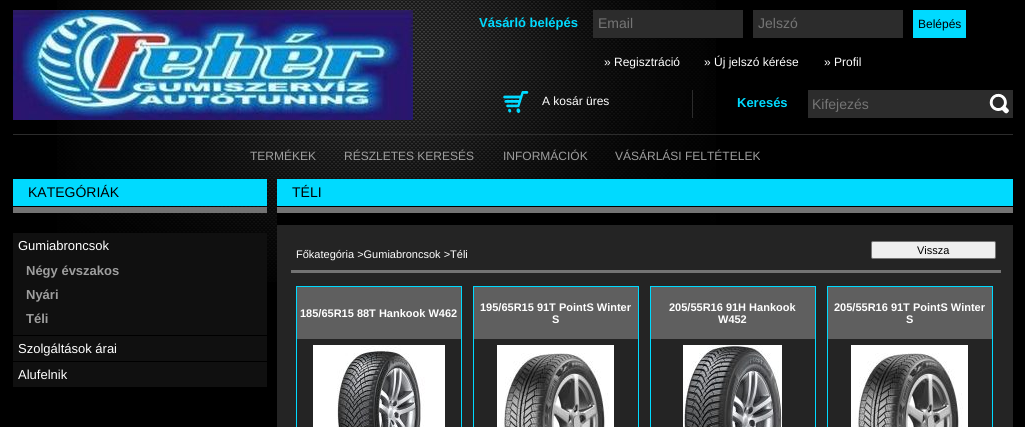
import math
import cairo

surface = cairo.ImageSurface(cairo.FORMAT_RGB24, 1025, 427)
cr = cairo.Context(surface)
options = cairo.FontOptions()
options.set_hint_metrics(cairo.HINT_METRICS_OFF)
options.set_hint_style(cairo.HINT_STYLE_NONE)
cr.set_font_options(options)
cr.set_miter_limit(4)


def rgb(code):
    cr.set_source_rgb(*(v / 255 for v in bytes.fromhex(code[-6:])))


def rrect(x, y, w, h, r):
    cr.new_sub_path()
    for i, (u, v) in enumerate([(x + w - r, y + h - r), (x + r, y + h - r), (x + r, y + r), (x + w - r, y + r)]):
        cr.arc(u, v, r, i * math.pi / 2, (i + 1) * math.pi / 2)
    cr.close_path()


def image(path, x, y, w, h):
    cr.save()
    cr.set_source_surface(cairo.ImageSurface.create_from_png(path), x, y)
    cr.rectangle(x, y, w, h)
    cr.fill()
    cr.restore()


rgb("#000000")
cr.paint()
image("img/1.png", 57, 0, 659, 282)
image("img/2.png", 13, 10, 400, 110)
for x, y, w, h, color in [
    (593, 10, 150, 28, "#2c2c2c"),
    (753, 10, 150, 28, "#2c2c2c"),
    (913, 10, 53, 28, "#00daff"),
    (692, 90, 1, 28, "#2c2c2c"),
]:
    rgb(color)
    cr.rectangle(x, y, w, h)
    cr.fill()
image("img/3.png", 503, 91, 26, 22)
cr.rectangle(808, 90, 205, 28)
cr.fill()
image("img/4.png", 989, 93, 20, 21)
for x, y, w, h, color in [
    (13, 134, 1000, 1, "#2c2c2c"),
    (277, 225, 736, 202, "#242424"),
    (13, 179, 254, 27, "#00daff"),
    (13, 207, 254, 6, "#737373"),
    (13, 233, 254, 102, "#101010"),
    (13, 336, 254, 25, "#101010"),
    (13, 362, 254, 25, "#101010"),
    (277, 179, 736, 27, "#00daff"),
    (277, 206, 402, 1, "#000000"),
    (277, 207, 736, 6, "#737373"),
    (277, 213, 433, 12, "#000000"),
]:
    rgb(color)
    cr.rectangle(x, y, w, h)
    cr.fill()
rgb("#efefef")
rrect(871.5, 241.5, 124, 17, 1.5)
cr.fill_preserve()
rgb("#767676")
cr.set_line_width(1)
cr.stroke()
rgb("#737373")
cr.rectangle(291, 270, 710, 3)
cr.fill()
cr.rectangle(296.5, 286.5, 165, 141)
rgb("#00daff")
cr.stroke()
rgb("#5f5f5f")
cr.rectangle(297, 287, 164, 52)
cr.fill()
image("img/5.png", 313, 345, 132, 82)
cr.rectangle(473.5, 286.5, 165, 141)
rgb("#00daff")
cr.stroke()
rgb("#5f5f5f")
cr.rectangle(474, 287, 164, 52)
cr.fill()
image("img/6.png", 497, 345, 117, 82)
cr.rectangle(650.5, 286.5, 165, 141)
rgb("#00daff")
cr.stroke()
rgb("#5f5f5f")
cr.rectangle(651, 287, 164, 52)
cr.fill()
image("img/7.png", 683, 345, 99, 82)
cr.rectangle(827.5, 286.5, 165, 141)
rgb("#00daff")
cr.stroke()
rgb("#5f5f5f")
cr.rectangle(828, 287, 164, 52)
cr.fill()
image("img/6.png", 851, 345, 117, 82)
cr.select_font_face("Liberation Sans", cairo.FONT_SLANT_NORMAL, cairo.FONT_WEIGHT_BOLD)
cr.set_font_size(13)
rgb("#00daff")
cr.move_to(479, 27)
cr.show_text("Vásárló belépés")
cr.select_font_face("Liberation Sans")
cr.set_font_size(14)
rgb("#757575")
cr.move_to(598, 28)
cr.show_text("Email")
cr.move_to(758, 28)
cr.show_text("Jelszó")
cr.set_font_size(12)
rgb("#000000")
cr.move_to(918, 28)
cr.show_text("Belépés")
rgb("#ffffff")
for x, y, s in [
    (604, 66, "» Regisztráció"),
    (704, 66, "» Új jelszó kérése"),
    (824, 66, "» Profil"),
    (542, 105, "A kosár üres"),
]:
    cr.move_to(x, y)
    cr.show_text(s)
cr.select_font_face("Liberation Sans", cairo.FONT_SLANT_NORMAL, cairo.FONT_WEIGHT_BOLD)
cr.set_font_size(13)
rgb("#00daff")
cr.move_to(737, 107)
cr.show_text("Keresés")
cr.select_font_face("Liberation Sans")
cr.set_font_size(14)
rgb("#757575")
cr.move_to(812, 109)
cr.show_text("Kifejezés")
cr.set_font_size(12)
rgb("#9e9e9e")
for x, y, s in [
    (250, 160, "TERMÉKEK"),
    (344, 160, "RÉSZLETES KERESÉS"),
    (503, 160, "INFORMÁCIÓK"),
    (615, 160, "VÁSÁRLÁSI FELTÉTELEK"),
]:
    cr.move_to(x, y)
    cr.show_text(s)
cr.set_font_size(14)
rgb("#000000")
cr.move_to(28, 197)
cr.show_text("KATEGÓRIÁK")
cr.set_font_size(13)
rgb("#ffffff")
cr.move_to(18, 250)
cr.show_text("Gumiabroncsok")
cr.select_font_face("Liberation Sans", cairo.FONT_SLANT_NORMAL, cairo.FONT_WEIGHT_BOLD)
rgb("#9e9e9e")
for x, y, s in [
    (26, 275, "Négy évszakos"),
    (26, 299, "Nyári"),
    (26, 323, "Téli"),
]:
    cr.move_to(x, y)
    cr.show_text(s)
cr.select_font_face("Liberation Sans")
rgb("#ffffff")
cr.move_to(18, 353)
cr.show_text("Szolgáltások árai")
cr.move_to(18, 379)
cr.show_text("Alufelnik")
cr.set_font_size(14)
rgb("#000000")
cr.move_to(292, 197)
cr.show_text("TÉLI")
cr.set_font_size(11)
rgb("#ffffff")
cr.move_to(296, 258)
cr.show_text("Főkategória >Gumiabroncsok >Téli")
rgb("#000000")
cr.move_to(917, 254)
cr.show_text("Vissza")
cr.select_font_face("Liberation Sans", cairo.FONT_SLANT_NORMAL, cairo.FONT_WEIGHT_BOLD)
rgb("#ffffff")
for x, y, s in [
    (300, 317, "185/65R15 88T Hankook W462"),
    (480, 311, "195/65R15 91T PointS Winter"),
    (552, 323, "S"),
    (669, 311, "205/55R16 91H Hankook"),
    (718, 323, "W452"),
    (834, 311, "205/55R16 91T PointS Winter"),
    (906, 323, "S"),
]:
    cr.move_to(x, y)
    cr.show_text(s)
surface.write_to_png("page.png")
